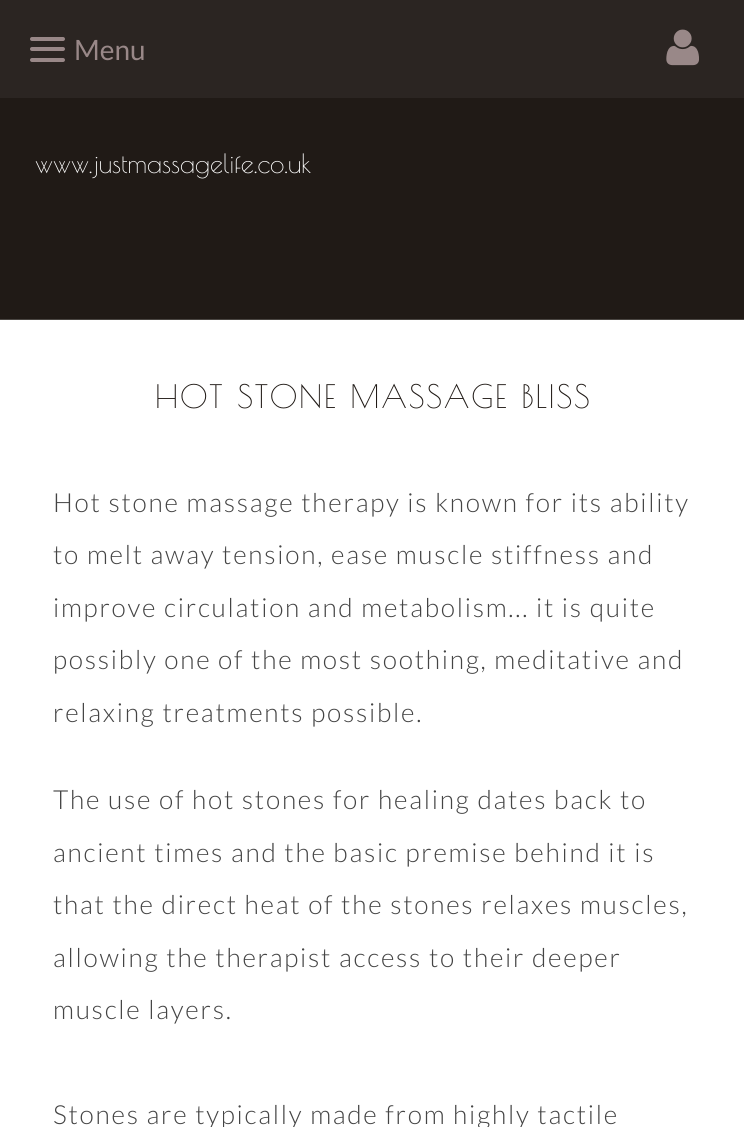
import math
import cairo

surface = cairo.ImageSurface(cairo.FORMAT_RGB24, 744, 1127)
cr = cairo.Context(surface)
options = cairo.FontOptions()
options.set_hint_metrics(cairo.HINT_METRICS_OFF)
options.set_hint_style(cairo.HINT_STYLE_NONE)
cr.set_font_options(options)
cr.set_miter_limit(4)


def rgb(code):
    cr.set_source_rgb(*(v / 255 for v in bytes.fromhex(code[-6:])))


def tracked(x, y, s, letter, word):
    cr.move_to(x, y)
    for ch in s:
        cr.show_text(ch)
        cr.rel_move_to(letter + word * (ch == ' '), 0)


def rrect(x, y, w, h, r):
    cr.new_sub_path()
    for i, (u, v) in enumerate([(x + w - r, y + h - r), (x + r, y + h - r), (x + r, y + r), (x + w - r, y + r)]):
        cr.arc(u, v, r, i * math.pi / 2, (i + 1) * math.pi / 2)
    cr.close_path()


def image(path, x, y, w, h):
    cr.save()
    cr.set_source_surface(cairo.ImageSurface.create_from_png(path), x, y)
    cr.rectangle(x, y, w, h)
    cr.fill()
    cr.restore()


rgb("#ffffff")
cr.paint()
for x, y, w, h, color in [
    (0, 98, 744, 221, "#201a16"),
    (0, 319, 744, 1, "#4a4642"),
    (0, 0, 744, 98, "#2b2522"),
]:
    rgb(color)
    cr.rectangle(x, y, w, h)
    cr.fill()
rgb("#998888")
rrect(30, 47, 35, 4, 2)
cr.fill()
rrect(30, 37, 35, 4, 2)
cr.fill()
rrect(30, 58, 35, 4, 2)
cr.fill()
image("img/1.png", 666, 29, 33, 37)
cr.select_font_face("Lato")
cr.set_font_size(28)
cr.move_to(74, 60)
cr.show_text("Menu")
cr.select_font_face("Poiret One")
cr.set_font_size(26.25)
rgb("#ffffff")
cr.move_to(35, 173)
cr.show_text("www.justmassagelife.co.uk")
cr.set_font_size(31.75)
rgb("#201a16")
tracked(155, 408, "HOT STONE MASSAGE BLISS", 1.75, 0)
cr.select_font_face("Lato Light")
cr.set_font_size(26.25)
rgb("#444444")
for x, y, s in [
    (53, 512, "Hot stone massage therapy is known for its ability"),
    (53, 564, "to melt away tension, ease muscle stiffness and"),
    (53, 617, "improve circulation and metabolism... it is quite"),
    (53, 669, "possibly one of the most soothing, meditative and"),
    (53, 722, "relaxing treatments possible."),
    (53, 809, "The use of hot stones for healing dates back to"),
    (53, 862, "ancient times and the basic premise behind it is"),
    (53, 914, "that the direct heat of the stones relaxes muscles,"),
    (53, 967, "allowing the therapist access to their deeper"),
    (53, 1019, "muscle layers."),
    (53, 1124, "Stones are typically made from highly tactile"),
]:
    tracked(x, y, s, 1.75, 0)
surface.write_to_png("page.png")
